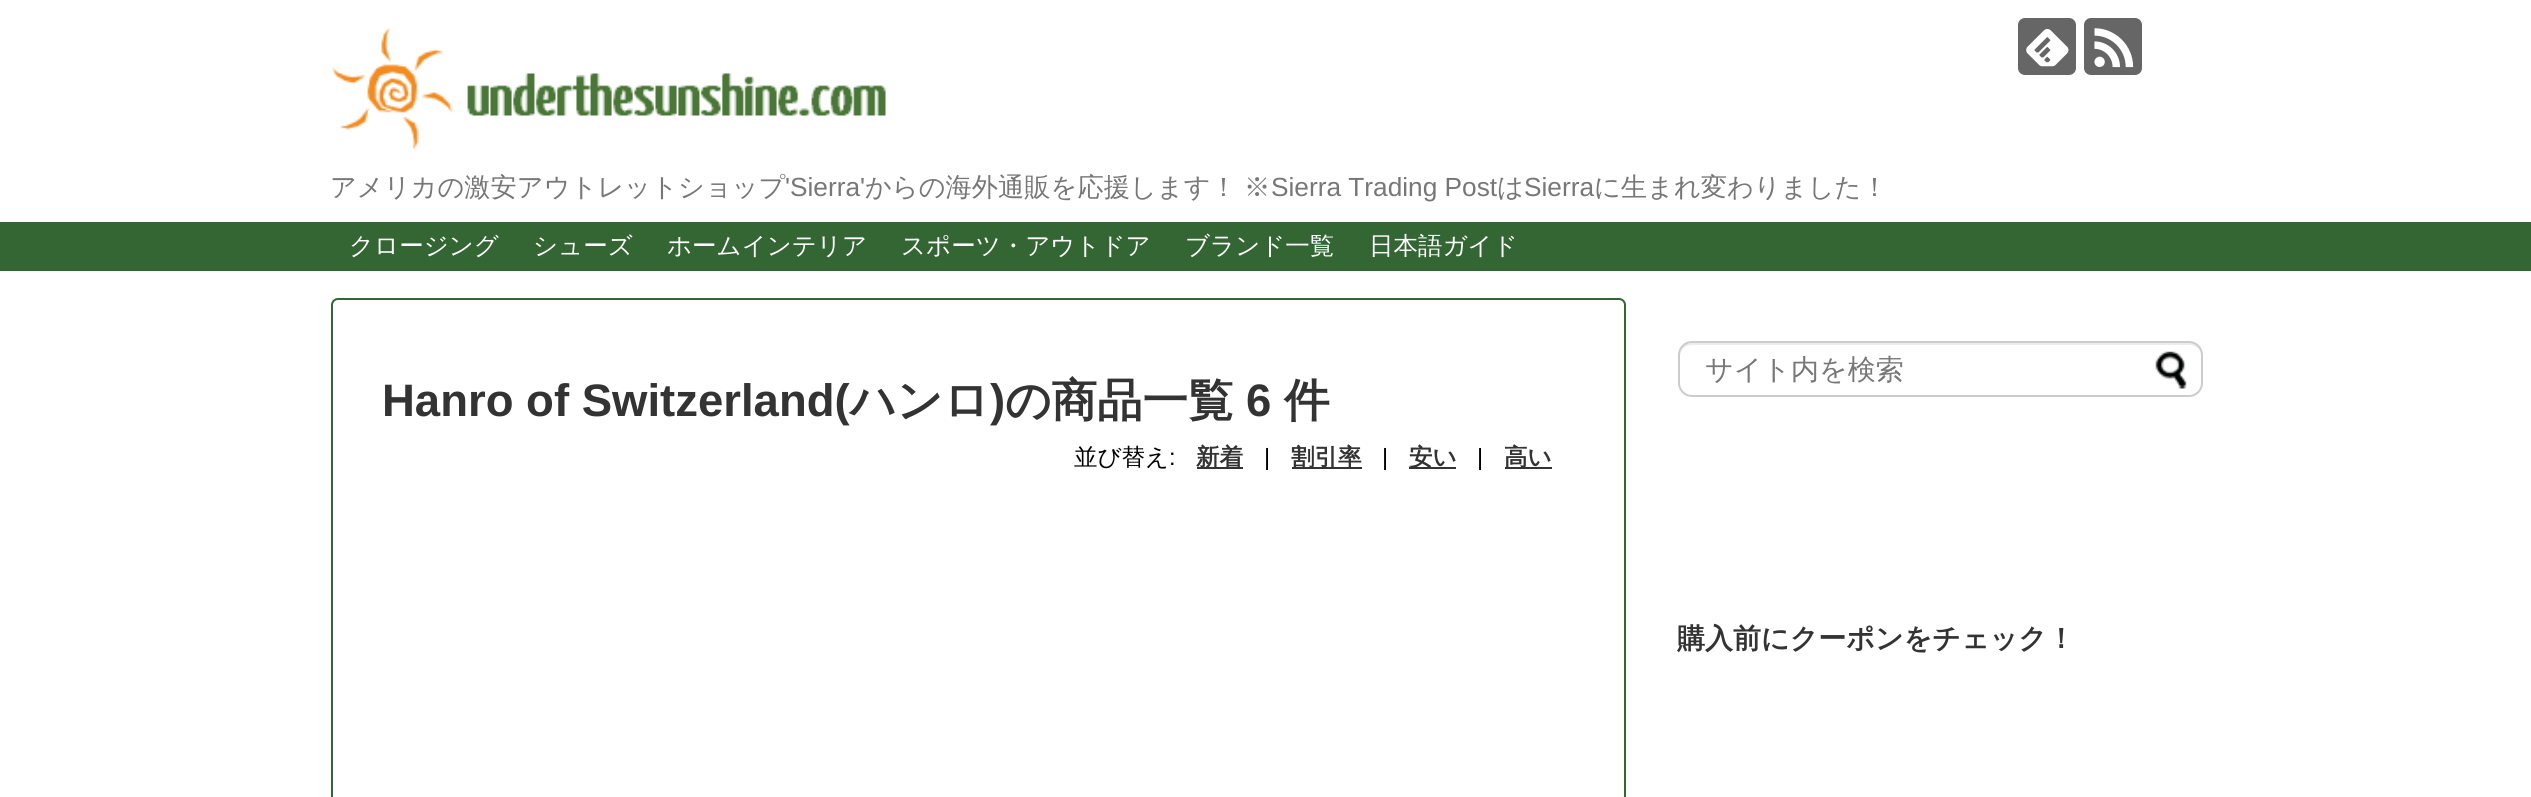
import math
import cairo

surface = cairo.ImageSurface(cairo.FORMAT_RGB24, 2531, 797)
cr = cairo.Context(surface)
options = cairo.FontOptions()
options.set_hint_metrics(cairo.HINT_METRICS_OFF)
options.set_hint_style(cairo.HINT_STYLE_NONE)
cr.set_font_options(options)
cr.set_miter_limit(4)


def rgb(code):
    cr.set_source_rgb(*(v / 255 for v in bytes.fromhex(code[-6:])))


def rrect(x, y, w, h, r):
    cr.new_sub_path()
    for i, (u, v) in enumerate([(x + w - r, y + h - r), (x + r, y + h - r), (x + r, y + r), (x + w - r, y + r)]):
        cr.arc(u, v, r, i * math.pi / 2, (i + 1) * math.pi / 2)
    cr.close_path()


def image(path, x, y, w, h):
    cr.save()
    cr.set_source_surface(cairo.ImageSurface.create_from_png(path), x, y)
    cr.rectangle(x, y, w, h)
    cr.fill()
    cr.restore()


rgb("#ffffff")
cr.paint()
rgb("#666666")
rrect(2018, 18, 58, 57, 7)
cr.fill()
image("img/1.png", 2026, 29, 43, 38)
rrect(2084, 18, 58, 57, 7)
cr.fill()
image("img/2.png", 2094, 28, 40, 40)
image("img/3.png", 332, 28, 554, 122)
rgb("#336633")
cr.rectangle(0, 222, 2531, 49)
cr.fill()
rrect(332, 299, 1293, 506, 6)
cr.stroke()
for x, y, w, h, color in [
    (1197, 467, 46, 2, "#333333"),
    (1292, 467, 70, 2, "#333333"),
    (1409, 467, 47, 2, "#333333"),
    (1505, 467, 47, 2, "#333333"),
]:
    rgb(color)
    cr.rectangle(x, y, w, h)
    cr.fill()
rgb("#ececec")
cr.new_path()
cr.move_to(1692, 345)
cr.line_to(2189, 345)
cr.curve_to(2196, 345, 2202, 350, 2202, 357)
cr.line_to(2202, 355)
cr.curve_to(2202, 348, 2197, 343, 2190, 343)
cr.line_to(1692, 343)
cr.curve_to(1685, 343, 1680, 348, 1680, 355)
cr.line_to(1680, 357)
cr.curve_to(1680, 350, 1685, 345, 1692, 345)
cr.close_path()
cr.fill()
rrect(1679, 342, 523, 54, 13)
rgb("#cccccc")
cr.stroke()
image("img/4.png", 2155, 351, 32, 38)
cr.select_font_face("WenQuanYi Zen Hei Medium")
cr.set_font_size(26.25)
rgb("#777777")
cr.move_to(330, 196)
cr.show_text("アメリカの激安アウトレットショップ")
cr.select_font_face("Liberation Sans")
cr.move_to(785, 196)
cr.show_text("'Sierra'")
cr.select_font_face("WenQuanYi Zen Hei Medium")
cr.move_to(865, 196)
cr.show_text("からの海外通販を応援します！")
cr.move_to(1244, 196)
cr.show_text("※")
cr.select_font_face("Liberation Sans")
cr.move_to(1271, 196)
cr.show_text("Sierra Trading Post")
cr.select_font_face("WenQuanYi Zen Hei Medium")
cr.move_to(1497, 196)
cr.show_text("は")
cr.select_font_face("Liberation Sans")
cr.move_to(1524, 196)
cr.show_text("Sierra")
cr.select_font_face("WenQuanYi Zen Hei Medium")
cr.move_to(1594, 196)
cr.show_text("に生まれ変わりました！")
cr.set_font_size(24.5)
rgb("#ffffff")
for x, y, s in [
    (349, 254, "クロージング"),
    (533, 254, "シューズ"),
    (667, 254, "ホームインテリア"),
    (901, 254, "スポーツ・アウトドア"),
    (1185, 254, "ブランド一覧"),
    (1369, 254, "日本語ガイド"),
]:
    cr.move_to(x, y)
    cr.show_text(s)
cr.select_font_face("Liberation Sans", cairo.FONT_SLANT_NORMAL, cairo.FONT_WEIGHT_BOLD)
cr.set_font_size(45.5)
rgb("#333333")
cr.move_to(382, 416)
cr.show_text("Hanro of Switzerland(")
cr.select_font_face("WenQuanYi Zen Hei", cairo.FONT_SLANT_NORMAL, cairo.FONT_WEIGHT_BOLD)
cr.move_to(850, 416)
cr.show_text("ハンロ")
cr.select_font_face("Liberation Sans", cairo.FONT_SLANT_NORMAL, cairo.FONT_WEIGHT_BOLD)
cr.move_to(990, 416)
cr.show_text(")")
cr.select_font_face("WenQuanYi Zen Hei", cairo.FONT_SLANT_NORMAL, cairo.FONT_WEIGHT_BOLD)
cr.move_to(1005, 416)
cr.show_text("の商品一覧")
cr.select_font_face("Liberation Sans", cairo.FONT_SLANT_NORMAL, cairo.FONT_WEIGHT_BOLD)
cr.move_to(1246, 416)
cr.show_text("6")
cr.select_font_face("WenQuanYi Zen Hei", cairo.FONT_SLANT_NORMAL, cairo.FONT_WEIGHT_BOLD)
cr.move_to(1284, 416)
cr.show_text("件")
cr.select_font_face("WenQuanYi Zen Hei Medium")
cr.set_font_size(23.5)
rgb("#000000")
cr.move_to(1074, 465)
cr.show_text("並び替え")
cr.select_font_face("Liberation Sans")
cr.move_to(1169, 465)
cr.show_text(":")
cr.select_font_face("WenQuanYi Zen Hei", cairo.FONT_SLANT_NORMAL, cairo.FONT_WEIGHT_BOLD)
rgb("#333333")
cr.move_to(1196, 465)
cr.show_text("新着")
cr.select_font_face("Liberation Sans")
rgb("#000000")
cr.move_to(1264, 465)
cr.show_text("|")
cr.select_font_face("WenQuanYi Zen Hei", cairo.FONT_SLANT_NORMAL, cairo.FONT_WEIGHT_BOLD)
rgb("#333333")
cr.move_to(1291, 465)
cr.show_text("割引率")
cr.select_font_face("Liberation Sans")
rgb("#000000")
cr.move_to(1382, 465)
cr.show_text("|")
cr.select_font_face("WenQuanYi Zen Hei", cairo.FONT_SLANT_NORMAL, cairo.FONT_WEIGHT_BOLD)
rgb("#333333")
cr.move_to(1409, 465)
cr.show_text("安い")
cr.select_font_face("Liberation Sans")
rgb("#000000")
cr.move_to(1477, 465)
cr.show_text("|")
cr.select_font_face("WenQuanYi Zen Hei", cairo.FONT_SLANT_NORMAL, cairo.FONT_WEIGHT_BOLD)
rgb("#333333")
cr.move_to(1504, 465)
cr.show_text("高い")
cr.select_font_face("WenQuanYi Zen Hei Medium")
cr.set_font_size(28)
rgb("#777777")
cr.move_to(1705, 379)
cr.show_text("サイト内を検索")
cr.select_font_face("WenQuanYi Zen Hei", cairo.FONT_SLANT_NORMAL, cairo.FONT_WEIGHT_BOLD)
rgb("#333333")
cr.move_to(1677, 648)
cr.show_text("購入前にクーポンをチェック！")
surface.write_to_png("page.png")
